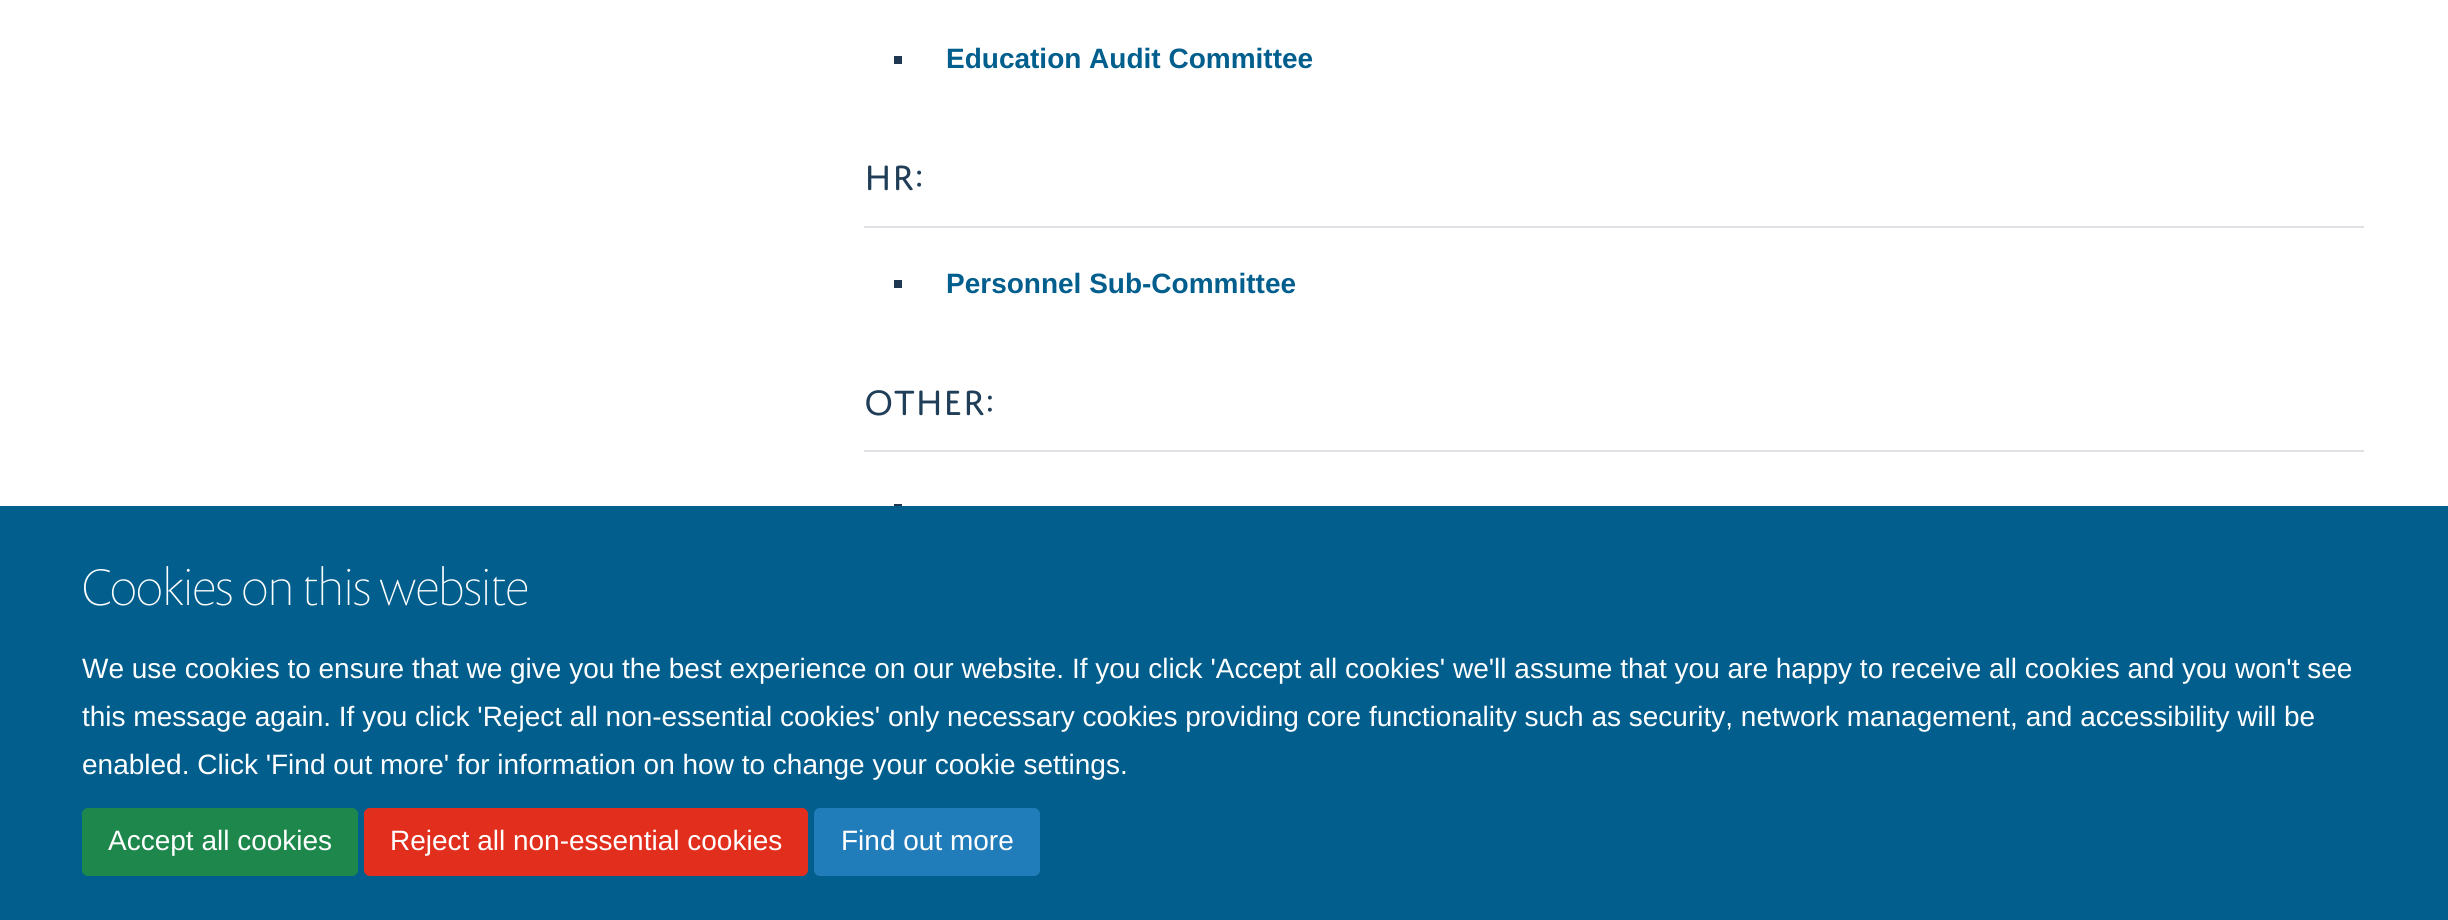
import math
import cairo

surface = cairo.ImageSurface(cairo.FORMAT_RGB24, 2448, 920)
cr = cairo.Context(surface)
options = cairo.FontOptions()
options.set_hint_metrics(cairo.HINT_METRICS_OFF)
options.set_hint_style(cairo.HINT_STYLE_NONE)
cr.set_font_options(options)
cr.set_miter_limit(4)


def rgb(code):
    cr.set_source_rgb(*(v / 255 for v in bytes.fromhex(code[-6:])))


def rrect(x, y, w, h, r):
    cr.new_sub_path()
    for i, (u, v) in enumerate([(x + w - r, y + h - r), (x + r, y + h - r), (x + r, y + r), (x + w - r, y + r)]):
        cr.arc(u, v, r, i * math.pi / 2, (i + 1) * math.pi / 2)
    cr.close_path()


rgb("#ffffff")
cr.paint()
for x, y, w, h, color in [
    (894, 56, 8, 8, "#1d3850"),
    (864, 226, 1500, 2, "#dfe1e4"),
    (894, 280, 8, 8, "#1d3850"),
    (864, 450, 1500, 2, "#dfe1e4"),
    (894, 504, 8, 2, "#1d3850"),
    (0, 506, 2448, 414, "#015e8d"),
]:
    rgb(color)
    cr.rectangle(x, y, w, h)
    cr.fill()
rgb("#1e874b")
rrect(83, 809, 274, 66, 5)
cr.fill_preserve()
cr.stroke()
rgb("#e22e1c")
rrect(365, 809, 442, 66, 5)
cr.fill_preserve()
cr.stroke()
rgb("#217cba")
rrect(815, 809, 224, 66, 5)
cr.fill_preserve()
cr.stroke()
cr.select_font_face("Liberation Sans", cairo.FONT_SLANT_NORMAL, cairo.FONT_WEIGHT_BOLD)
cr.set_font_size(28)
rgb("#015e8d")
cr.move_to(946, 68)
cr.show_text("Education Audit Committee")
cr.select_font_face("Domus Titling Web")
cr.set_font_size(37.5)
rgb("#203e58")
cr.move_to(864, 190)
cr.show_text("HR:")
cr.select_font_face("Liberation Sans", cairo.FONT_SLANT_NORMAL, cairo.FONT_WEIGHT_BOLD)
cr.set_font_size(28)
rgb("#015e8d")
cr.move_to(946, 293)
cr.show_text("Personnel Sub-Committee")
cr.select_font_face("Domus Titling Web")
cr.set_font_size(37.5)
rgb("#203e58")
cr.move_to(864, 415)
cr.show_text("OTHER:")
cr.select_font_face("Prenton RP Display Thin")
cr.set_font_size(52)
rgb("#ffffff")
cr.move_to(82, 605)
cr.show_text("Cookies on this website")
cr.select_font_face("Liberation Sans")
cr.set_font_size(28)
for x, y, s in [
    (82, 678, "We use cookies to ensure that we give you the best experience on our website. If you click 'Accept all cookies' we'll assume that you are happy to receive all cookies and you won't see"),
    (82, 726, "this message again. If you click 'Reject all non-essential cookies' only necessary cookies providing core functionality such as security, network management, and accessibility will be"),
    (82, 774, "enabled. Click 'Find out more' for information on how to change your cookie settings."),
    (108, 850, "Accept all cookies"),
    (390, 850, "Reject all non-essential cookies"),
    (841, 850, "Find out more"),
]:
    cr.move_to(x, y)
    cr.show_text(s)
surface.write_to_png("page.png")
